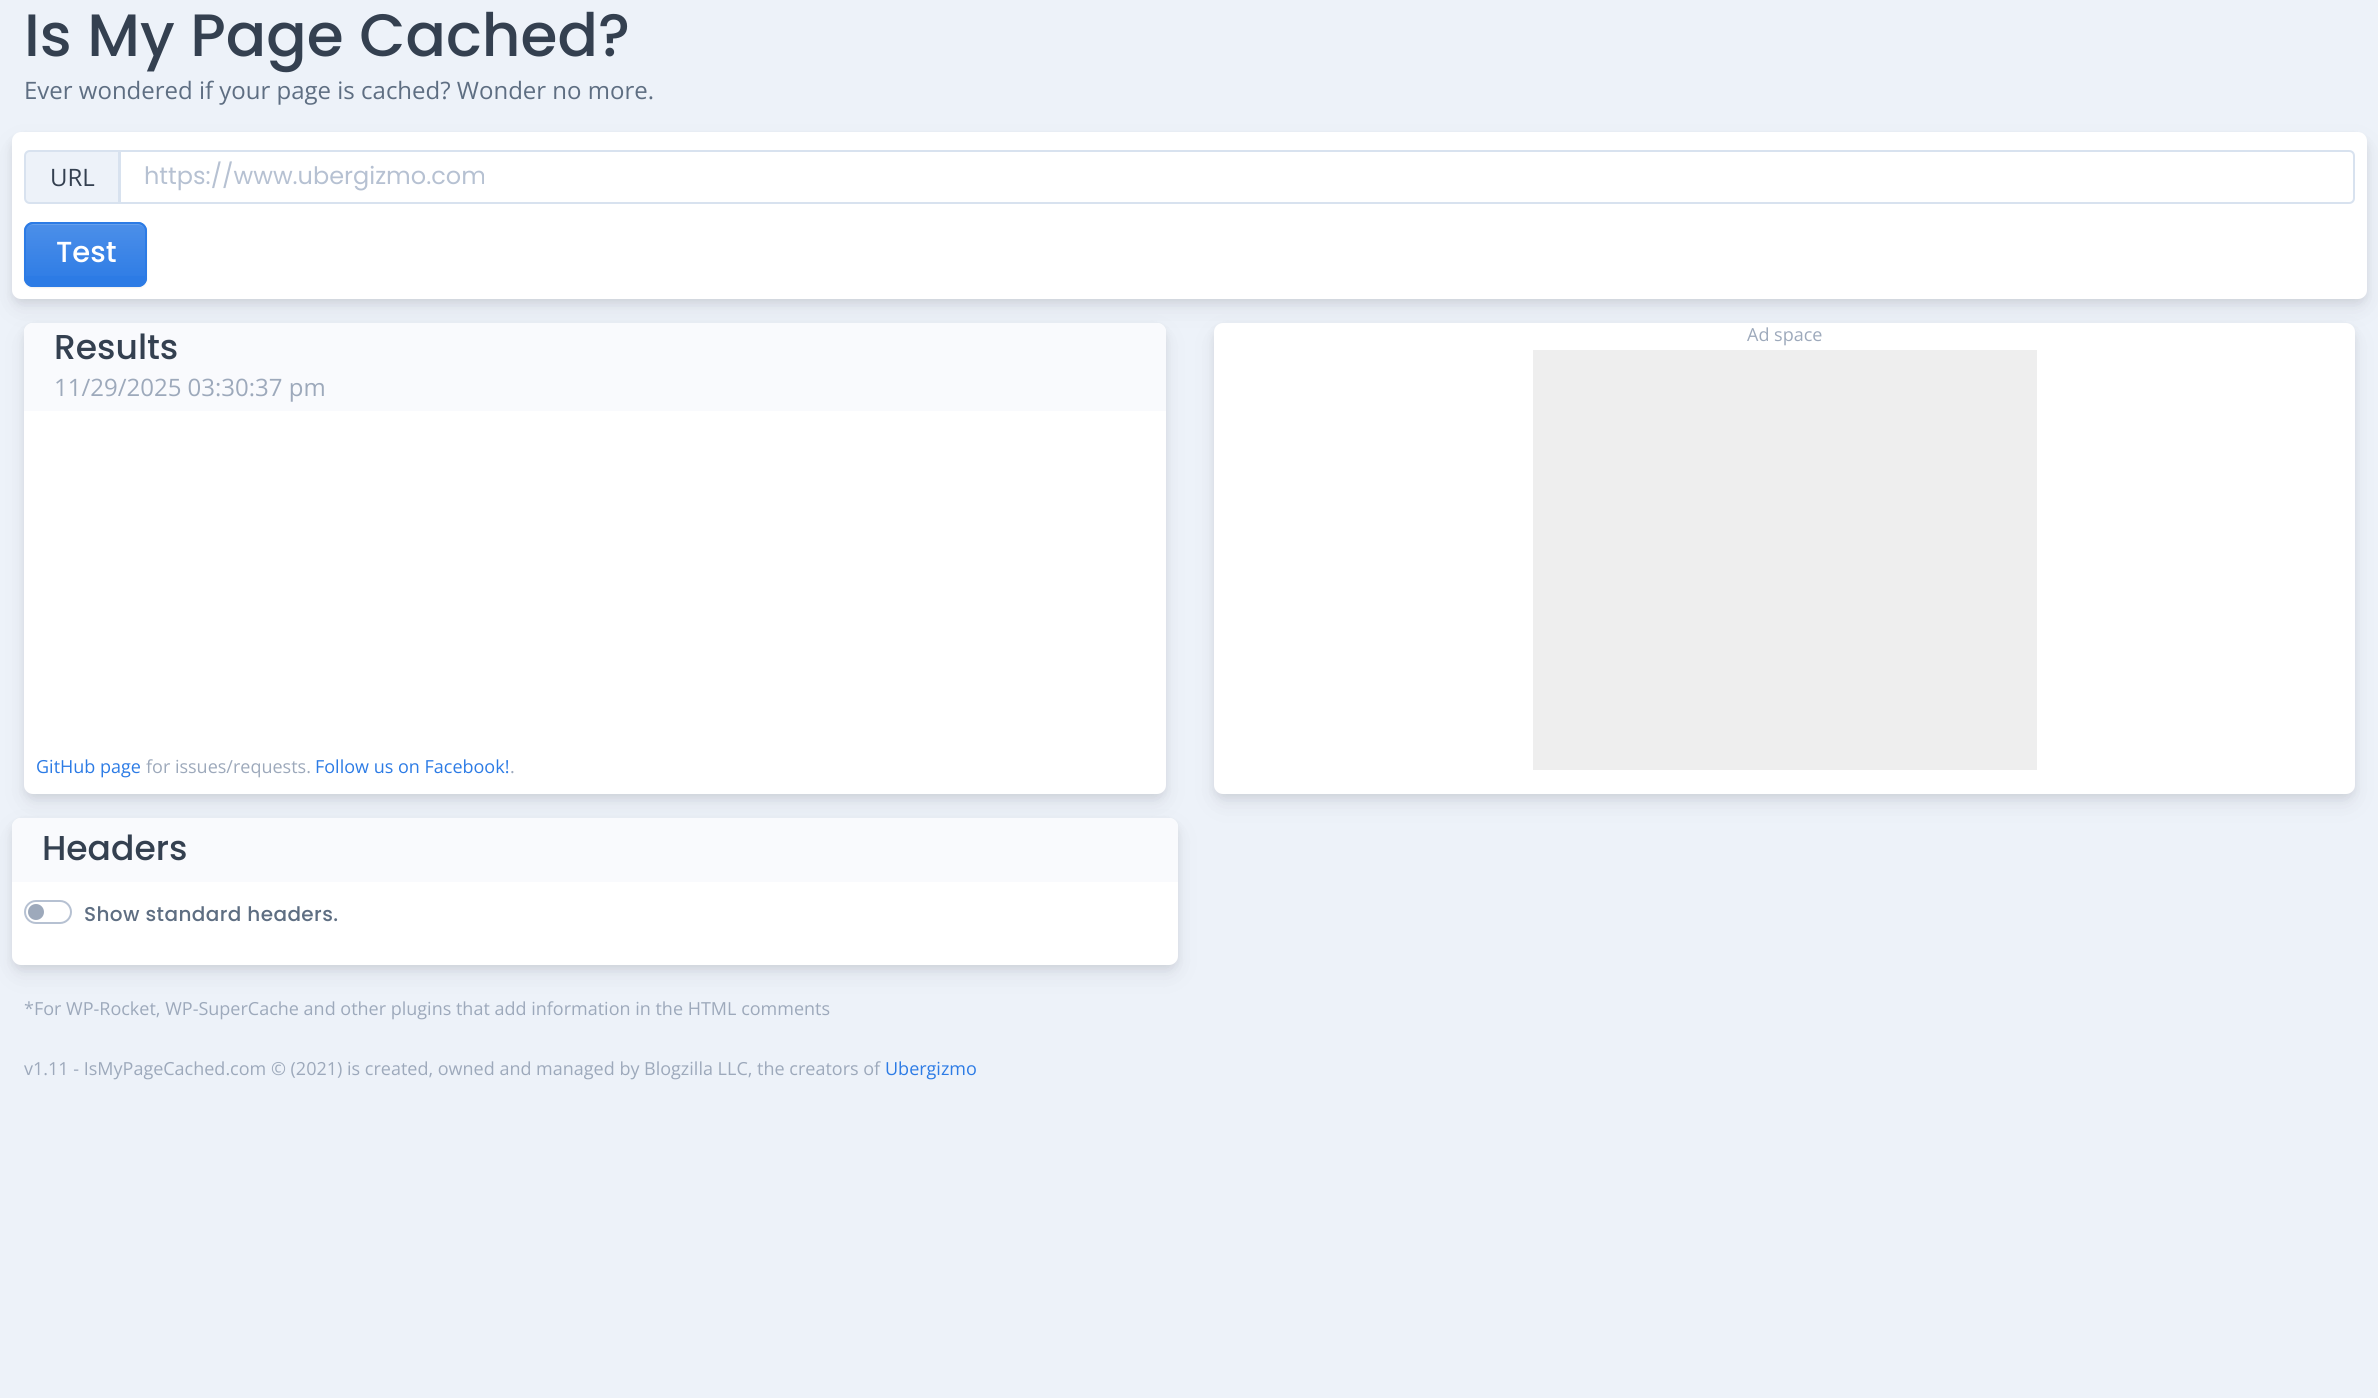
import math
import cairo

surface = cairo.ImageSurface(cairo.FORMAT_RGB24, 2378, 1398)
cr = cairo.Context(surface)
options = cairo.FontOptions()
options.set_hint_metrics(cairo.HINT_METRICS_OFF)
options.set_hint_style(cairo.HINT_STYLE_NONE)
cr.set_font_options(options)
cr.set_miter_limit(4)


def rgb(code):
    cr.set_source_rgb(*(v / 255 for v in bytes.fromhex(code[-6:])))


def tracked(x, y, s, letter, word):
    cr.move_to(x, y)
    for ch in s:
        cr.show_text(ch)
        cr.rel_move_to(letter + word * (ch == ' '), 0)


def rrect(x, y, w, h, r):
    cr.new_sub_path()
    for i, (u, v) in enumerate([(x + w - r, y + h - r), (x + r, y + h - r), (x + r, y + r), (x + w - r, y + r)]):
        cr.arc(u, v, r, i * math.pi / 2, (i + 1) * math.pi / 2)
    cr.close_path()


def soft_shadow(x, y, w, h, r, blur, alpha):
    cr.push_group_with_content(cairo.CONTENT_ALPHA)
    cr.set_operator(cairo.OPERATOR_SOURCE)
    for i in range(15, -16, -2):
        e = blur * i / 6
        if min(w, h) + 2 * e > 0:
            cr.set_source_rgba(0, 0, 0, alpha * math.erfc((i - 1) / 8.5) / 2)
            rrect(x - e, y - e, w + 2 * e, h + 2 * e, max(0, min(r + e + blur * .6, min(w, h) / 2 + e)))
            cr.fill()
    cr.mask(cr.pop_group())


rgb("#edf2f9")
cr.paint()
rgb("#000000")
soft_shadow(12, 137, 2355, 166, 9, 4.5, 0.07)
rgb("#414558")
soft_shadow(12, 143, 2355, 166, 9, 10.5, 0.1)
rgb("#ffffff")
rrect(12, 132, 2355, 167, 9)
cr.fill()
rgb("#edf2f9")
cr.new_path()
cr.move_to(30, 151)
cr.line_to(119, 151)
cr.line_to(119, 203)
cr.line_to(30, 203)
cr.curve_to(27, 203, 25, 201, 25, 198)
cr.line_to(25, 156)
cr.curve_to(25, 153, 27, 151, 30, 151)
cr.close_path()
cr.fill_preserve()
rgb("#d8e2ef")
cr.stroke()
cr.new_path()
cr.move_to(120, 151)
cr.line_to(2349, 151)
cr.curve_to(2352, 151, 2354, 153, 2354, 156)
cr.line_to(2354, 198)
cr.curve_to(2354, 201, 2352, 203, 2349, 203)
cr.line_to(120, 203)
cr.close_path()
cr.stroke()
rgb("#000000")
soft_shadow(24, 224, 123, 64, 9, 1, 0.07)
rgb("#2c7be5")
rrect(24, 222, 123, 65, 9)
cr.fill()
cr.save()
rrect(24, 222, 123, 65, 9)
cr.clip()
gradient = cairo.LinearGradient(86, 224, 86, 285)
gradient.add_color_stop_rgba(0, 1, 1, 1, 0.15)
gradient.add_color_stop_rgba(1, 1, 1, 1, 0)
cr.set_source(gradient)
cr.rectangle(24, 224, 123, 52)
cr.fill()
cr.restore()
rgb("#66a0ec")
cr.new_path()
cr.move_to(33, 225)
cr.line_to(138, 225)
cr.curve_to(142, 225, 146, 228, 146, 232)
cr.curve_to(146, 228, 142, 224, 138, 224)
cr.line_to(34, 224)
cr.curve_to(30, 224, 26, 228, 26, 232)
cr.curve_to(26, 228, 29, 225, 33, 225)
cr.close_path()
cr.fill()
rrect(25, 223, 121, 63, 8)
rgb("#2c7be5")
cr.stroke()
rgb("#000000")
soft_shadow(24, 327, 1142, 471, 9, 4.5, 0.07)
rgb("#414558")
soft_shadow(24, 333, 1142, 471, 9, 10.5, 0.1)
rgb("#ffffff")
rrect(24, 323, 1142, 471, 9)
cr.fill()
rgb("#f9fafd")
cr.new_path()
cr.move_to(33, 323)
cr.line_to(1157, 323)
cr.curve_to(1162, 323, 1166, 327, 1166, 332)
cr.line_to(1166, 411)
cr.line_to(24, 411)
cr.line_to(24, 332)
cr.curve_to(24, 327, 28, 323, 33, 323)
cr.close_path()
cr.fill()
rgb("#000000")
soft_shadow(1214, 327, 1141, 471, 9, 4.5, 0.07)
rgb("#414558")
soft_shadow(1214, 333, 1141, 471, 9, 10.5, 0.1)
rgb("#ffffff")
rrect(1214, 323, 1141, 471, 9)
cr.fill()
rgb("#eeeeee")
cr.rectangle(1533, 350, 504, 420)
cr.fill()
rgb("#000000")
soft_shadow(12, 822, 1166, 147, 9, 4.5, 0.07)
rgb("#414558")
soft_shadow(12, 828, 1166, 147, 9, 10.5, 0.1)
rgb("#ffffff")
rrect(12, 818, 1166, 147, 9)
cr.fill()
rgb("#f9fafd")
cr.new_path()
cr.move_to(21, 818)
cr.line_to(1169, 818)
cr.curve_to(1174, 818, 1178, 822, 1178, 827)
cr.line_to(1178, 882)
cr.line_to(12, 882)
cr.line_to(12, 827)
cr.curve_to(12, 822, 16, 818, 21, 818)
cr.close_path()
cr.fill()
rgb("#9da9bb")
cr.arc(36, 912, 8, 0, 2 * math.pi)
cr.fill()
rrect(25, 901, 46, 22, 11)
rgb("#b6c1d2")
cr.stroke()
cr.select_font_face("Poppins Medium")
cr.set_font_size(59.75)
rgb("#344050")
cr.move_to(24, 56)
cr.show_text("Is My Page Cached?")
cr.select_font_face("Open Sans")
cr.set_font_size(24)
rgb("#5e6e82")
cr.move_to(24, 99)
cr.show_text("Ever wondered if your page is cached? Wonder no more.")
rgb("#344050")
cr.move_to(50, 186)
cr.show_text("URL")
cr.select_font_face("Poppins")
rgb("#b6c1d2")
cr.move_to(144, 184)
cr.show_text("https://www.ubergizmo.com")
cr.select_font_face("Poppins Medium")
cr.set_font_size(29)
rgb("#ffffff")
cr.move_to(56, 262)
cr.show_text("Test")
cr.set_font_size(34.5)
rgb("#344050")
cr.move_to(54, 359)
cr.show_text("Results")
cr.select_font_face("Open Sans")
cr.set_font_size(24)
rgb("#9da9bb")
cr.move_to(54, 396)
cr.show_text("11/29/2025 03:30:37 pm")
cr.set_font_size(18)
rgb("#2c7be5")
cr.move_to(36, 773)
cr.show_text("GitHub page")
rgb("#9da9bb")
cr.move_to(146, 773)
cr.show_text("for issues/requests.")
rgb("#2c7be5")
cr.move_to(315, 773)
cr.show_text("Follow us on Facebook!")
rgb("#9da9bb")
cr.move_to(510, 773)
cr.show_text(".")
cr.move_to(1747, 341)
cr.show_text("Ad space")
cr.select_font_face("Poppins Medium")
cr.set_font_size(34.5)
rgb("#344050")
cr.move_to(42, 860)
cr.show_text("Headers")
cr.set_font_size(20)
rgb("#5e6e82")
tracked(84, 921, "Show standard headers.", 0.4, 0)
cr.select_font_face("Open Sans")
cr.set_font_size(18)
rgb("#9da9bb")
cr.move_to(24, 1015)
cr.show_text("*For WP-Rocket, WP-SuperCache and other plugins that add information in the HTML comments")
cr.move_to(24, 1075)
cr.show_text("v1.11 - IsMyPageCached.com © (2021) is created, owned and managed by Blogzilla LLC, the creators of")
rgb("#2c7be5")
cr.move_to(885, 1075)
cr.show_text("Ubergizmo")
surface.write_to_png("page.png")
